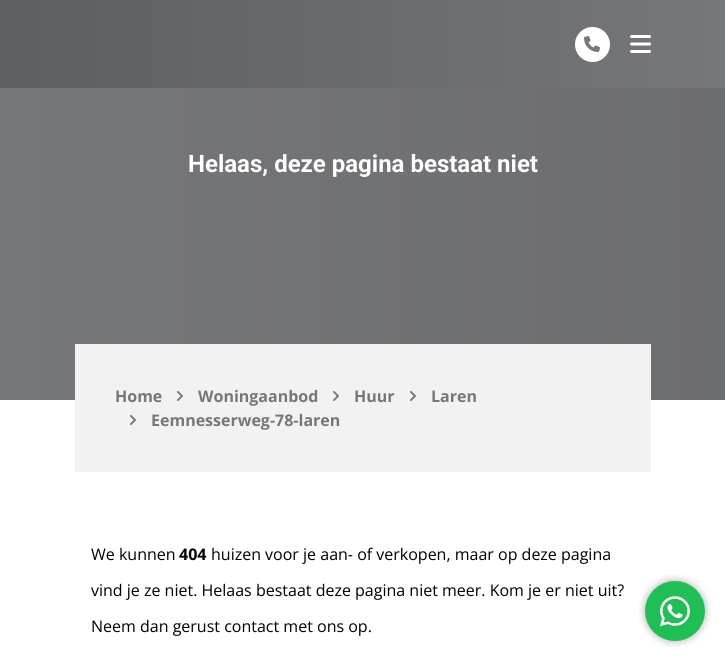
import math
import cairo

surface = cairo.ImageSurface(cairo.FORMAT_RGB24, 725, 661)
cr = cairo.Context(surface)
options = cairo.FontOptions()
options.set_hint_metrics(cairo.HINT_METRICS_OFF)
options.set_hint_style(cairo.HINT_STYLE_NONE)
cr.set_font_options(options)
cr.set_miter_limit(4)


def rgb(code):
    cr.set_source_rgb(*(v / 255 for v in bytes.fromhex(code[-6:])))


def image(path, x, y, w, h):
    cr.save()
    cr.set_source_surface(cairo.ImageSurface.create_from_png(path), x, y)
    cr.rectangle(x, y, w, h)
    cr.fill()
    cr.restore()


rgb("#ffffff")
cr.paint()
gradient = cairo.LinearGradient(0, 200, 725, 200)
gradient.add_color_stop_rgba(0, 0.463, 0.467, 0.478, 1)
gradient.add_color_stop_rgba(1, 0.424, 0.427, 0.439, 1)
cr.set_source(gradient)
cr.rectangle(0, 88, 725, 312)
cr.fill()
gradient = cairo.LinearGradient(0, 44, 725, 44)
gradient.add_color_stop_rgba(0, 0.365, 0.369, 0.38, 1)
gradient.add_color_stop_rgba(1, 0.463, 0.467, 0.478, 1)
cr.set_source(gradient)
cr.rectangle(0, 0, 725, 88)
cr.fill()
rgb("#ffffff")
cr.arc(592.5, 44.5, 17.5, 0, 2 * math.pi)
cr.fill()
image("img/1.png", 584, 36, 16, 16)
image("img/2.png", 630, 35, 21, 18)
rgb("#f2f2f2")
cr.rectangle(75, 344, 576, 128)
cr.fill()
image("img/3.png", 177, 391, 6, 10)
image("img/3.png", 333, 391, 6, 10)
image("img/3.png", 410, 391, 6, 10)
image("img/3.png", 130, 415, 6, 10)
image("img/4.png", 639, 575, 72, 72)
cr.select_font_face("Roboto", cairo.FONT_SLANT_NORMAL, cairo.FONT_WEIGHT_BOLD)
cr.set_font_size(24)
rgb("#ffffff")
cr.move_to(188, 172)
cr.show_text("Helaas, deze pagina bestaat niet")
cr.select_font_face("Open Sans", cairo.FONT_SLANT_NORMAL, cairo.FONT_WEIGHT_BOLD)
cr.set_font_size(16)
rgb("#76777a")
for x, y, s in [
    (115, 402, "Home"),
    (198, 402, "Woningaanbod"),
    (354, 402, "Huur"),
    (431, 402, "Laren"),
    (151, 426, "Eemnesserweg-78-laren"),
]:
    cr.move_to(x, y)
    cr.show_text(s)
cr.select_font_face("Open Sans")
rgb("#000000")
cr.move_to(91, 560)
cr.show_text("We kunnen")
cr.select_font_face("Open Sans", cairo.FONT_SLANT_NORMAL, cairo.FONT_WEIGHT_BOLD)
cr.move_to(179, 560)
cr.show_text("404")
cr.select_font_face("Open Sans")
for x, y, s in [
    (211, 560, "huizen voor je aan- of verkopen, maar op deze pagina"),
    (91, 596, "vind je ze niet. Helaas bestaat deze pagina niet meer. Kom je er niet uit?"),
    (91, 632, "Neem dan gerust contact met ons op."),
]:
    cr.move_to(x, y)
    cr.show_text(s)
surface.write_to_png("page.png")
